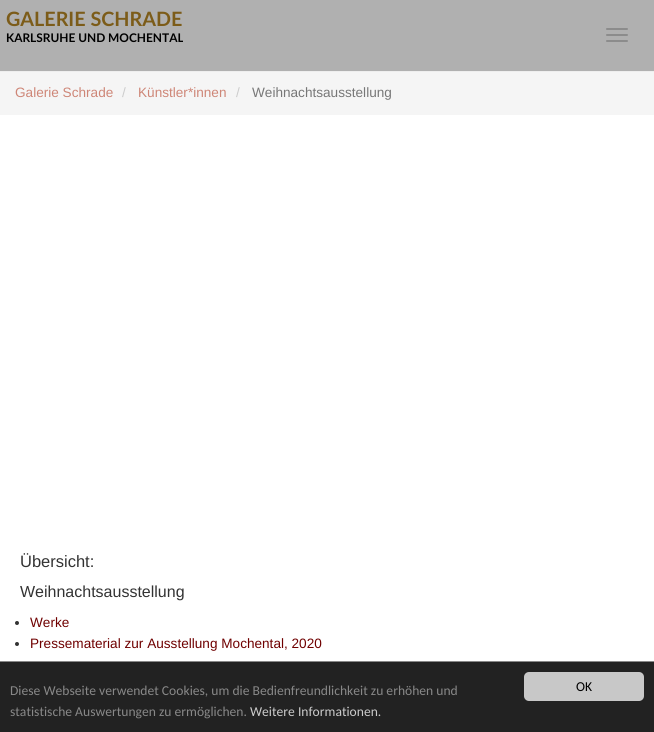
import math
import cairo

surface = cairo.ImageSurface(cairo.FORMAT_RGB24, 654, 732)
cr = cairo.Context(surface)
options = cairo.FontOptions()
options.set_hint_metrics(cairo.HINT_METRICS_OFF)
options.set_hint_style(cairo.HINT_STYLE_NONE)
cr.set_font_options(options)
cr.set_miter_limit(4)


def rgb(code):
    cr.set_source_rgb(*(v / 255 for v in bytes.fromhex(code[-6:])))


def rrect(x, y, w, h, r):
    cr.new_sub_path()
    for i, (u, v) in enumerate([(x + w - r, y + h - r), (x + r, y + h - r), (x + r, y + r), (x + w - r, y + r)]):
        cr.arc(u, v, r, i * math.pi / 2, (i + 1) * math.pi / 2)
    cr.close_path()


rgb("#ffffff")
cr.paint()
rgb("#b0b0b0")
cr.rectangle(0, 0, 654, 71)
cr.fill()
rgb("#eeeeee")
cr.rectangle(0, 71, 654, 1)
cr.fill()
rgb("#8c8c8c")
rrect(606, 28, 22, 2, 1)
cr.fill()
rrect(606, 34, 22, 2, 1)
cr.fill()
rrect(606, 40, 22, 2, 1)
cr.fill()
rgb("#f5f5f5")
cr.rectangle(0, 72, 654, 43)
cr.fill()
rgb("#333333")
cr.arc(17, 623, 2, 0, 2 * math.pi)
cr.fill()
cr.arc(17, 644, 2, 0, 2 * math.pi)
cr.fill()
rgb("#222222")
cr.rectangle(0, 662, 654, 70)
cr.fill()
rgb("#888888")
cr.rectangle(0, 661, 654, 1)
cr.fill()
rgb("#c8c8c8")
rrect(524, 672, 120, 29, 5)
cr.fill()
cr.select_font_face("Lato", cairo.FONT_SLANT_NORMAL, cairo.FONT_WEIGHT_BOLD)
cr.set_font_size(19.75)
rgb("#7c5c19")
cr.move_to(6, 26)
cr.show_text("GALERIE SCHRADE")
cr.set_font_size(11.9)
rgb("#000000")
cr.move_to(6, 42)
cr.show_text("KARLSRUHE UND MOCHENTAL")
cr.select_font_face("Liberation Sans")
cr.set_font_size(13.6)
rgb("#ce8677")
cr.move_to(15, 97)
cr.show_text("Galerie Schrade")
rgb("#cccccc")
cr.move_to(122, 97)
cr.show_text("/")
rgb("#ce8677")
cr.move_to(138, 97)
cr.show_text("Künstler*innen")
rgb("#cccccc")
cr.move_to(236, 97)
cr.show_text("/")
rgb("#777777")
cr.move_to(252, 97)
cr.show_text("Weihnachtsausstellung")
cr.set_font_size(16.5)
rgb("#333333")
cr.move_to(20, 567)
cr.show_text("Übersicht:")
cr.set_font_size(16)
cr.move_to(20, 597)
cr.show_text("Weihnachtsausstellung")
cr.set_font_size(13.6)
rgb("#6f0000")
cr.move_to(30, 627)
cr.show_text("Werke")
cr.move_to(30, 648)
cr.show_text("Pressematerial zur Ausstellung Mochental, 2020")
cr.select_font_face("Carlito")
rgb("#888888")
cr.move_to(10, 695)
cr.show_text("Diese Webseite verwendet Cookies, um die Bedienfreundlichkeit zu erhöhen und")
cr.move_to(10, 716)
cr.show_text("statistische Auswertungen zu ermöglichen.")
rgb("#cccccc")
cr.move_to(250, 716)
cr.show_text("Weitere Informationen.")
rgb("#000000")
cr.move_to(576, 691)
cr.show_text("OK")
surface.write_to_png("page.png")
